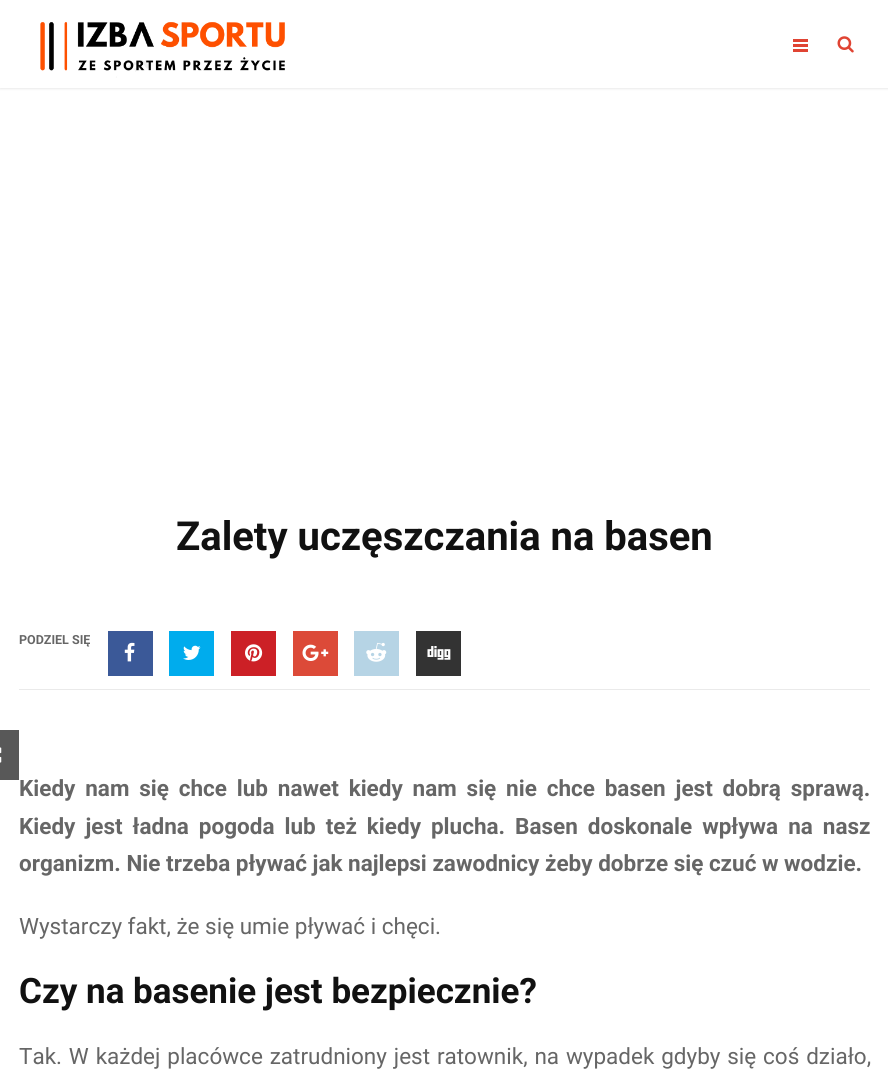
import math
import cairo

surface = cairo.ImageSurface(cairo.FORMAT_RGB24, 888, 1082)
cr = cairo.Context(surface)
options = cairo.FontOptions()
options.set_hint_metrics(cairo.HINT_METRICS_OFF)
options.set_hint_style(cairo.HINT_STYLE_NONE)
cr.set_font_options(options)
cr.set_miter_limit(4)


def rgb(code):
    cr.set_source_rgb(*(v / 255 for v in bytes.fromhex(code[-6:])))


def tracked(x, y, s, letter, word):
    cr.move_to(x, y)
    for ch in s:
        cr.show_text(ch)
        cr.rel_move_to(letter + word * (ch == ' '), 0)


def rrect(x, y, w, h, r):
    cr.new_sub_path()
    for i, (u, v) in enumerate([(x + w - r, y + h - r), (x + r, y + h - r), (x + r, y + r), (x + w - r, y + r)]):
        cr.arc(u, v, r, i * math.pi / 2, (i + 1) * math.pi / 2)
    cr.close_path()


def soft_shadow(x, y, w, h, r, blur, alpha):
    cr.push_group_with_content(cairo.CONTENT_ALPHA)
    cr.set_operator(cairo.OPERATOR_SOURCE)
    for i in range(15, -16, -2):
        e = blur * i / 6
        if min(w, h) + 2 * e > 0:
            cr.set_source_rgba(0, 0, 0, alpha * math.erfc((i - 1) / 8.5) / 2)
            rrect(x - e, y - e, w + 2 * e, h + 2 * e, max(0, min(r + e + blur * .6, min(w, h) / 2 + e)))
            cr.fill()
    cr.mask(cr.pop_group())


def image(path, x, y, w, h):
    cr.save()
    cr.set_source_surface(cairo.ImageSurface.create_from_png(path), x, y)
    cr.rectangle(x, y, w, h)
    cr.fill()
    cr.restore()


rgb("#ffffff")
cr.paint()
rgb("#eaeaea")
soft_shadow(0, 1, 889, 88, 0, 1, 1)
rgb("#ffffff")
cr.rectangle(0, 0, 888, 88)
cr.fill()
image("img/1.png", 40, 22, 245, 56)
for x, y, w, h, color in [
    (793, 39, 15, 3, "#e04433"),
    (793, 44, 15, 3, "#e04433"),
    (793, 49, 15, 3, "#e04433"),
]:
    rgb(color)
    cr.rectangle(x, y, w, h)
    cr.fill()
image("img/2.png", 837, 36, 17, 17)
rgb("#3b5998")
cr.rectangle(108, 631, 45, 45)
cr.fill()
image("img/3.png", 124, 642, 11, 20)
rgb("#00aced")
cr.rectangle(169, 631, 45, 45)
cr.fill()
image("img/4.png", 183, 645, 18, 15)
rgb("#cc2026")
cr.rectangle(231, 631, 45, 45)
cr.fill()
image("img/5.png", 245, 644, 18, 18)
rgb("#dc4a38")
cr.rectangle(293, 631, 45, 45)
cr.fill()
image("img/6.png", 302, 644, 27, 17)
rgb("#b6d4e5")
cr.rectangle(354, 631, 45, 45)
cr.fill()
image("img/7.png", 366, 642, 21, 20)
rgb("#333333")
cr.rectangle(416, 631, 45, 45)
cr.fill()
image("img/8.png", 427, 646, 24, 14)
rgb("#eaeaea")
cr.rectangle(19, 689, 851, 1)
cr.fill()
rgb("#585858")
cr.rectangle(0, 730, 19, 50)
cr.fill()
image("img/9.png", 0, 747, 2, 16)
cr.select_font_face("Roboto", cairo.FONT_SLANT_NORMAL, cairo.FONT_WEIGHT_BOLD)
cr.set_font_size(40)
rgb("#111111")
cr.move_to(176, 550)
cr.show_text("Zalety uczęszczania na basen")
cr.set_font_size(12.5)
rgb("#666666")
cr.move_to(19, 644)
cr.show_text("PODZIEL SIĘ")
cr.set_font_size(22.5)
tracked(19, 796, "Kiedy nam się chce lub nawet kiedy nam się nie chce basen jest dobrą sprawą.", 0, 4.25)
tracked(19, 834, "Kiedy jest ładna pogoda lub też kiedy plucha. Basen doskonale wpływa na nasz", 0, 4.4)
cr.move_to(19, 871)
cr.show_text("organizm. Nie trzeba pływać jak najlepsi zawodnicy żeby dobrze się czuć w wodzie.")
cr.select_font_face("Roboto")
cr.move_to(19, 934)
cr.show_text("Wystarczy fakt, że się umie pływać i chęci.")
cr.select_font_face("Roboto", cairo.FONT_SLANT_NORMAL, cairo.FONT_WEIGHT_BOLD)
cr.set_font_size(35)
rgb("#111111")
cr.move_to(19, 1003)
cr.show_text("Czy na basenie jest bezpiecznie?")
cr.select_font_face("Roboto")
cr.set_font_size(22.5)
rgb("#666666")
tracked(19, 1064, "Tak. W każdej placówce zatrudniony jest ratownik, na wypadek gdyby się coś działo,", 0, 1.25)
surface.write_to_png("page.png")
